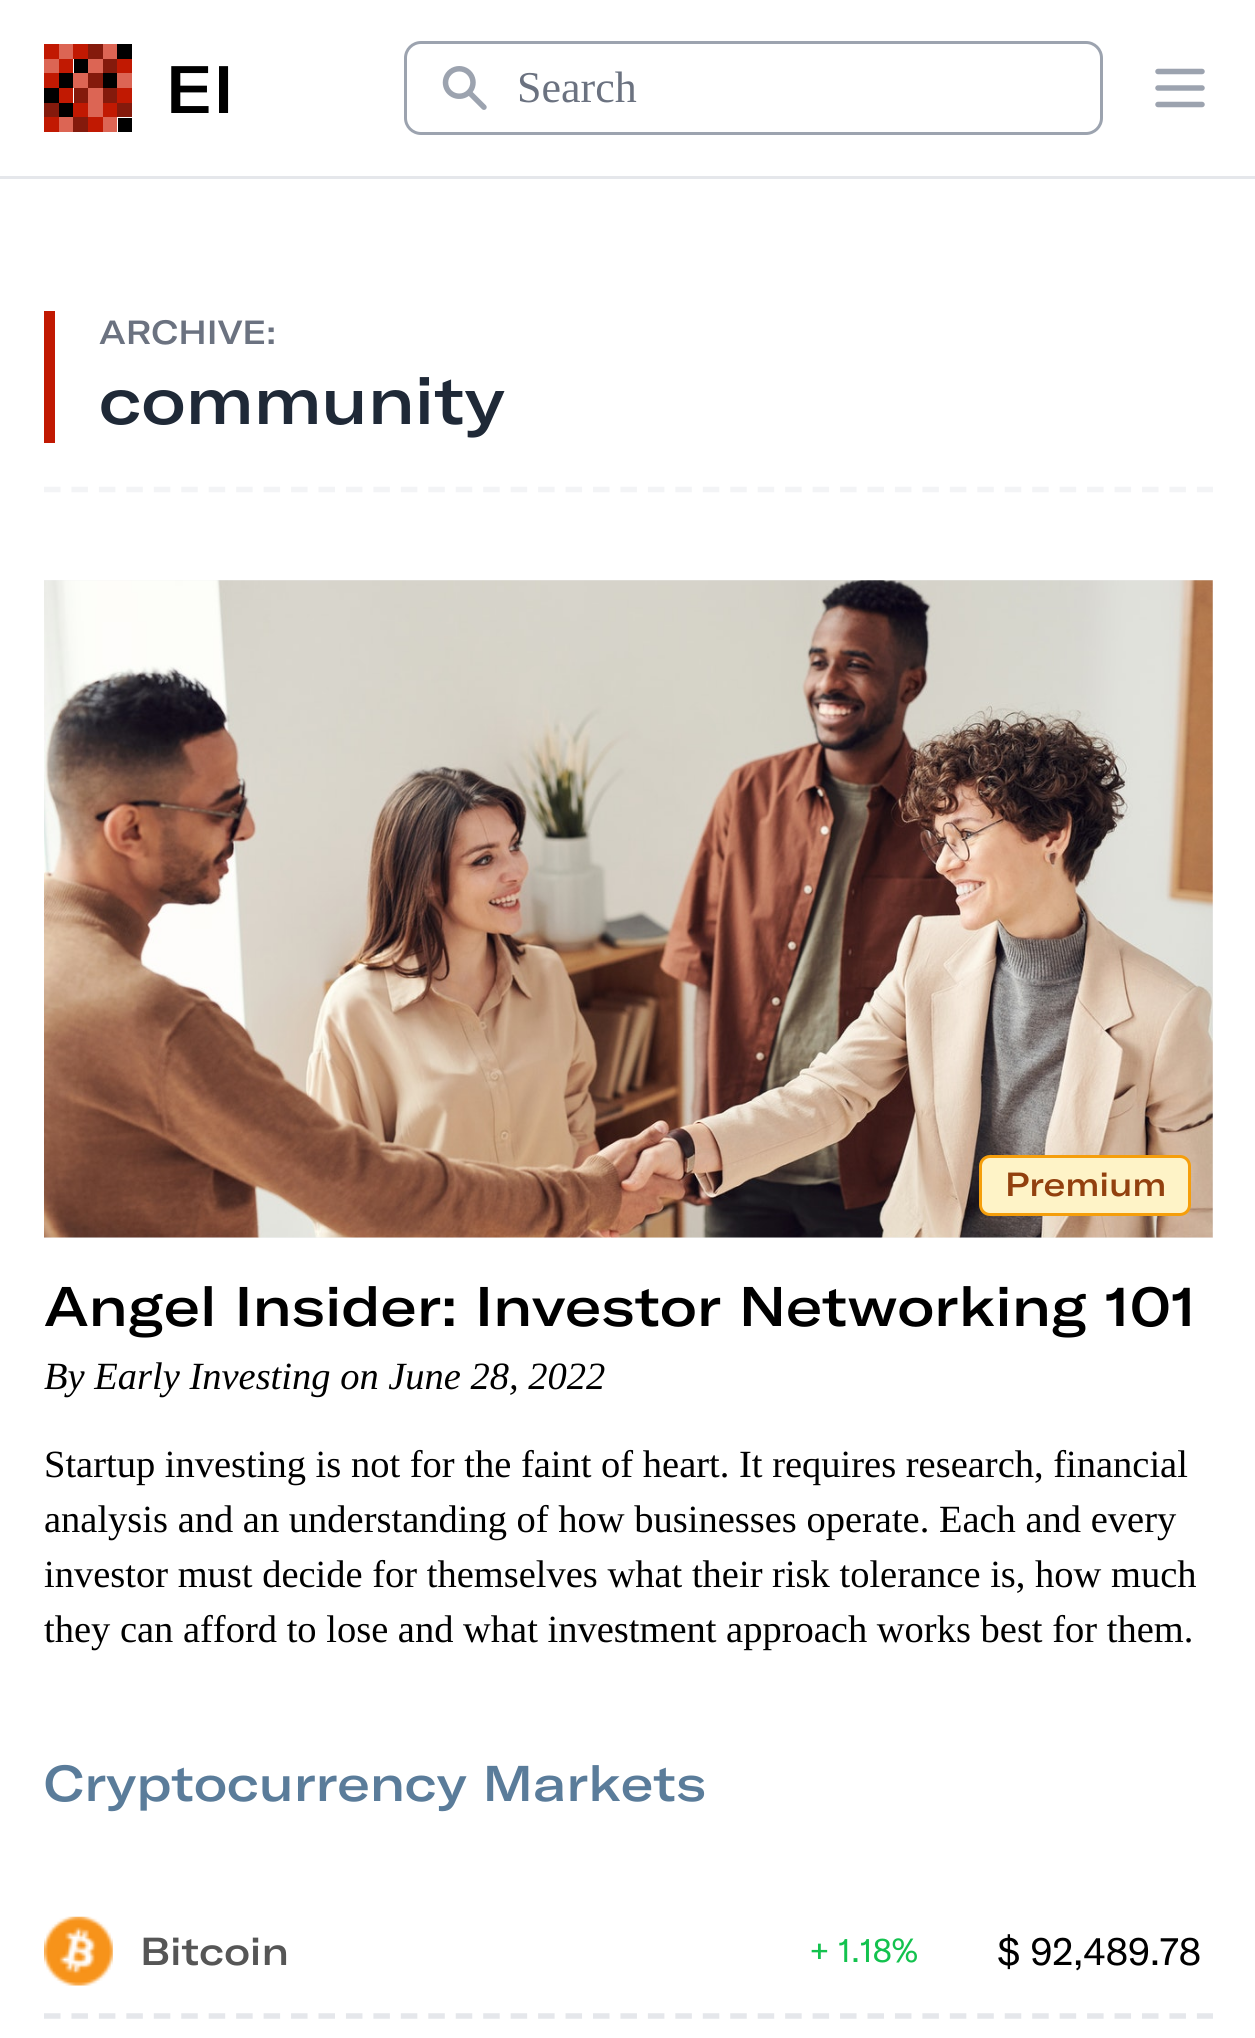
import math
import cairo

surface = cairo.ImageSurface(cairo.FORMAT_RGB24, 1255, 2038)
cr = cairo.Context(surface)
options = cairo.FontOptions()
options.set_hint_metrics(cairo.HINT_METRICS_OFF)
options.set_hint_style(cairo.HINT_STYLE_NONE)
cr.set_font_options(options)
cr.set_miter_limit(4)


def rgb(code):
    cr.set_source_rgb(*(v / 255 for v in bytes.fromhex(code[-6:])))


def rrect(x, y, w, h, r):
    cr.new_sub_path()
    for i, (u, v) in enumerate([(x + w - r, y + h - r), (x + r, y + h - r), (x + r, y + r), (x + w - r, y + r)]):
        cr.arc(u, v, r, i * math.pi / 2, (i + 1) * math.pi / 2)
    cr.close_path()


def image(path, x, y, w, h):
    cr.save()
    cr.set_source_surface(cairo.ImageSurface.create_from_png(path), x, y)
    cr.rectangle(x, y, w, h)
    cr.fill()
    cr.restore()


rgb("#ffffff")
cr.paint()
rgb("#e5e7eb")
cr.rectangle(0, 176, 1255, 3)
cr.fill()
image("img/1.png", 44, 44, 88, 88)
rrect(405.5, 42.5, 696, 91, 15.5)
rgb("#9ca3af")
cr.set_line_width(3)
cr.stroke()
image("img/2.png", 442, 66, 45, 44)
cr.new_path()
cr.move_to(1158, 71.5)
cr.line_to(1202, 71.5)
cr.move_to(1158, 88)
cr.line_to(1202, 88)
cr.move_to(1158, 104.5)
cr.line_to(1202, 104.5)
cr.set_line_width(5.5)
cr.set_line_cap(cairo.LINE_CAP_ROUND)
cr.set_line_join(cairo.LINE_JOIN_ROUND)
cr.stroke()
cr.new_path()
cr.move_to(44, 489.5)
cr.line_to(1213, 489.5)
rgb("#f3f4f6")
cr.set_line_cap(cairo.LINE_CAP_BUTT)
cr.set_line_join(cairo.LINE_JOIN_MITER)
cr.set_dash([16.5, 10.95])
cr.stroke()
rgb("#c11902")
cr.rectangle(44, 311, 11, 132)
cr.fill()
rgb("#f3f4f6")
cr.rectangle(44, 580, 1169, 658)
cr.fill()
image("img/3.png", 44, 580, 1169, 658)
rgb("#fef3c7")
rrect(980.5, 1156.5, 209, 58, 9.5)
cr.fill_preserve()
rgb("#f59e0b")
cr.set_line_width(3)
cr.set_dash([])
cr.stroke()
cr.new_path()
cr.move_to(44, 2016)
cr.line_to(1213, 2016)
rgb("#e5e7eb")
cr.set_line_width(5.5)
cr.set_dash([16.5, 10.95])
cr.stroke()
image("img/4.png", 44, 1916, 69, 70)
cr.select_font_face("GT America Medium")
cr.set_font_size(66)
rgb("#000000")
cr.move_to(165, 113)
cr.show_text("EI")
cr.select_font_face("Liberation Serif")
cr.set_font_size(44)
rgb("#6b7280")
cr.move_to(517, 102)
cr.show_text("Search")
cr.select_font_face("GT America Medium")
cr.set_font_size(33)
cr.move_to(99, 344)
cr.show_text("ARCHIVE:")
cr.set_font_size(66)
rgb("#1f2937")
cr.move_to(99, 424)
cr.show_text("community")
cr.set_font_size(33)
rgb("#92400e")
cr.move_to(1005, 1196)
cr.show_text("Premium")
cr.set_font_size(55)
rgb("#000000")
cr.move_to(44, 1326)
cr.show_text("Angel Insider: Investor Networking 101")
cr.select_font_face("Liberation Serif", cairo.FONT_SLANT_ITALIC)
cr.set_font_size(38.5)
cr.move_to(44, 1389)
cr.show_text("By Early Investing on June 28, 2022")
cr.select_font_face("Liberation Serif")
for x, y, s in [
    (44, 1477, "Startup investing is not for the faint of heart. It requires research, financial"),
    (44, 1532, "analysis and an understanding of how businesses operate. Each and every"),
    (44, 1587, "investor must decide for themselves what their risk tolerance is, how much"),
    (44, 1642, "they can afford to lose and what investment approach works best for them."),
]:
    cr.move_to(x, y)
    cr.show_text(s)
cr.select_font_face("GT America Medium")
cr.set_font_size(49.5)
rgb("#5a7c9a")
cr.move_to(44, 1801)
cr.show_text("Cryptocurrency Markets")
cr.set_font_size(38.5)
rgb("#565656")
cr.move_to(140, 1965)
cr.show_text("Bitcoin")
cr.select_font_face("GT America")
cr.set_font_size(33)
rgb("#13c24e")
cr.move_to(810, 1962)
cr.show_text("+")
cr.move_to(838, 1962)
cr.show_text("1.18%")
cr.set_font_size(38.5)
rgb("#000000")
cr.move_to(997, 1965)
cr.show_text("$ 92,489.78")
surface.write_to_png("page.png")
